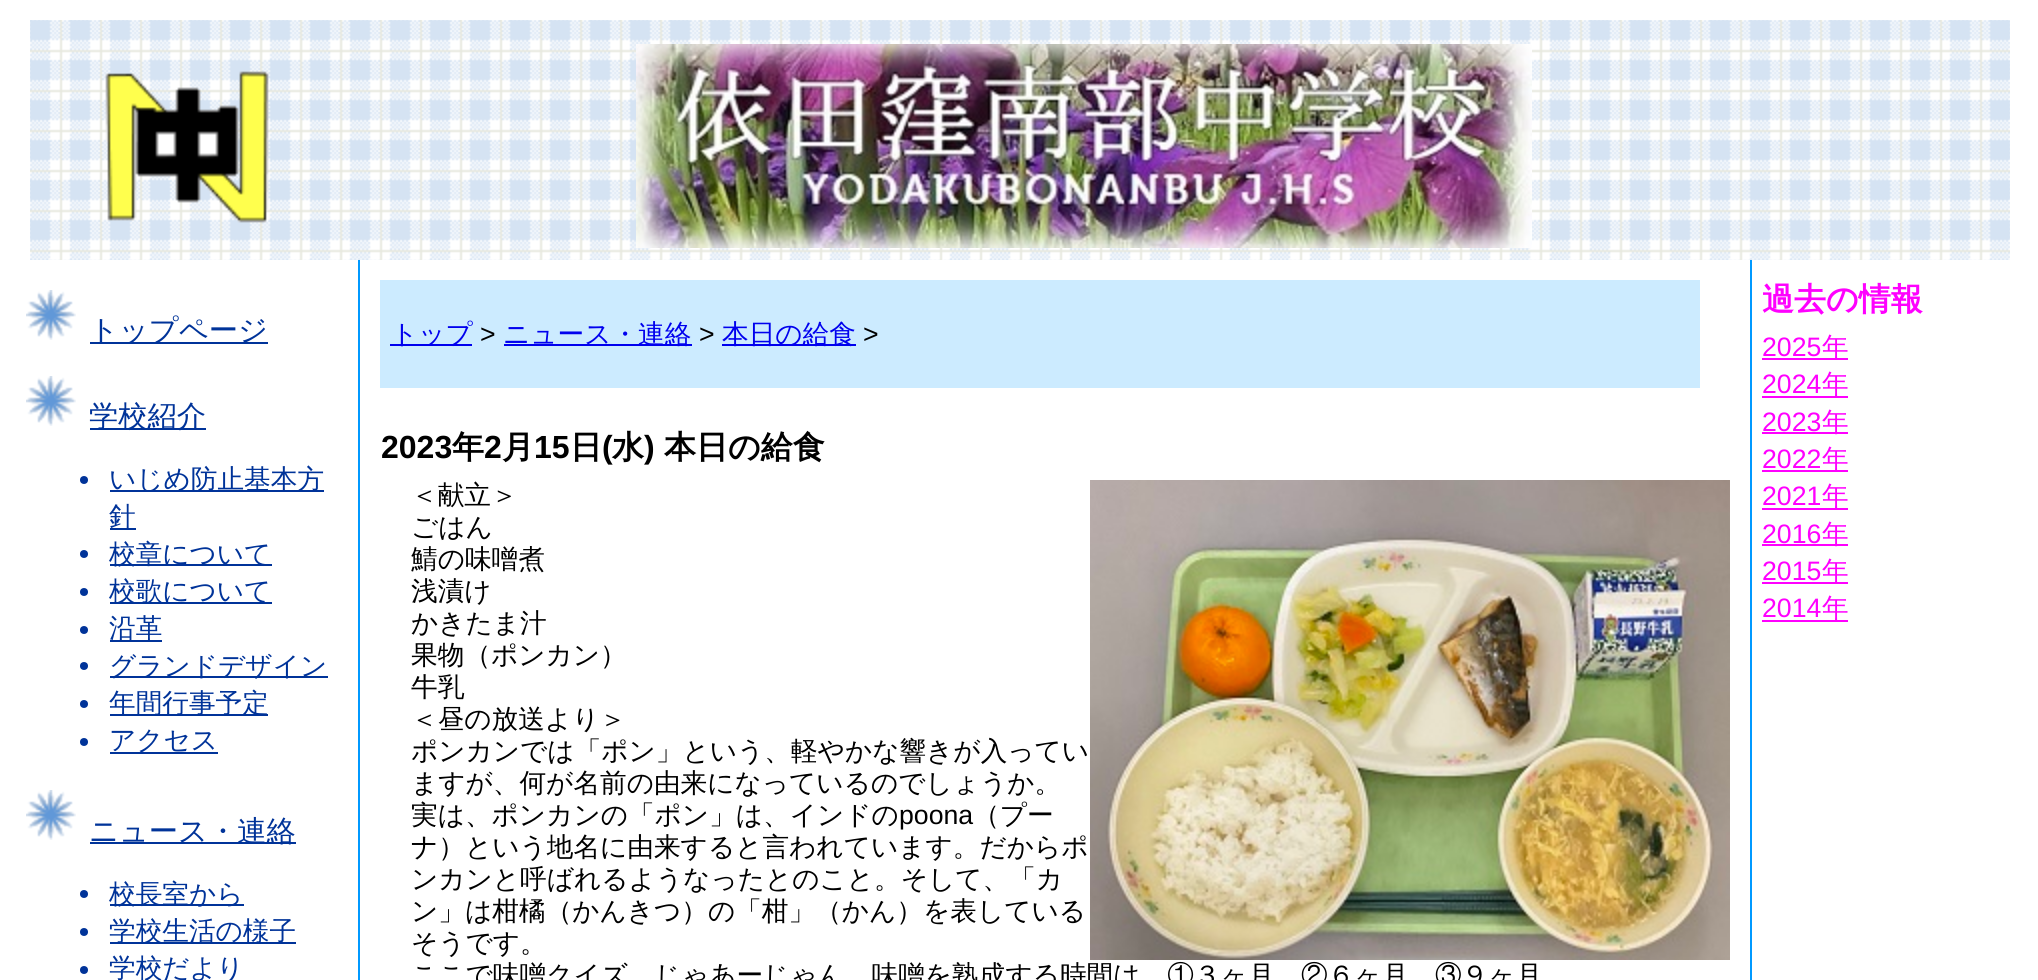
import math
import cairo

surface = cairo.ImageSurface(cairo.FORMAT_RGB24, 2038, 980)
cr = cairo.Context(surface)
options = cairo.FontOptions()
options.set_hint_metrics(cairo.HINT_METRICS_OFF)
options.set_hint_style(cairo.HINT_STYLE_NONE)
cr.set_font_options(options)
cr.set_miter_limit(4)


def rgb(code):
    cr.set_source_rgb(*(v / 255 for v in bytes.fromhex(code[-6:])))


def image(path, x, y, w, h):
    cr.save()
    cr.set_source_surface(cairo.ImageSurface.create_from_png(path), x, y)
    cr.rectangle(x, y, w, h)
    cr.fill()
    cr.restore()


rgb("#ffffff")
cr.paint()
image("img/1.png", 30, 20, 1980, 240)
image("img/2.png", 105, 71, 164, 152)
image("img/3.png", 636, 44, 896, 204)
image("img/4.png", 26, 290, 50, 50)
rgb("#003399")
cr.rectangle(90, 342, 178, 2)
cr.fill()
image("img/4.png", 26, 376, 50, 50)
cr.rectangle(90, 428, 116, 2)
cr.fill()
cr.arc(84, 480, 4, 0, 2 * math.pi)
cr.fill()
cr.rectangle(110, 490, 214, 2)
cr.fill()
cr.rectangle(110, 528, 26, 2)
cr.fill()
cr.arc(84, 554, 4, 0, 2 * math.pi)
cr.fill()
cr.rectangle(110, 564, 162, 2)
cr.fill()
cr.arc(84, 592, 4, 0, 2 * math.pi)
cr.fill()
cr.rectangle(110, 602, 162, 2)
cr.fill()
cr.arc(84, 630, 4, 0, 2 * math.pi)
cr.fill()
cr.rectangle(110, 640, 52, 2)
cr.fill()
cr.arc(84, 666, 4, 0, 2 * math.pi)
cr.fill()
cr.rectangle(110, 676, 218, 2)
cr.fill()
cr.arc(84, 704, 4, 0, 2 * math.pi)
cr.fill()
cr.rectangle(110, 714, 158, 2)
cr.fill()
cr.arc(84, 742, 4, 0, 2 * math.pi)
cr.fill()
cr.rectangle(110, 752, 108, 2)
cr.fill()
image("img/4.png", 26, 790, 50, 50)
cr.rectangle(90, 842, 206, 2)
cr.fill()
cr.arc(84, 894, 4, 0, 2 * math.pi)
cr.fill()
cr.rectangle(110, 904, 134, 2)
cr.fill()
cr.arc(84, 932, 4, 0, 2 * math.pi)
cr.fill()
cr.rectangle(110, 942, 186, 2)
cr.fill()
cr.arc(84, 970, 4, 0, 2 * math.pi)
cr.fill()
for x, y, w, h, color in [
    (1750, 260, 2, 720, "#0099ff"),
    (358, 260, 2, 720, "#0099ff"),
    (380, 280, 1320, 108, "#ccebff"),
    (390, 344, 82, 2, "#0000ee"),
    (504, 344, 188, 2, "#0000ee"),
    (722, 344, 134, 2, "#0000ee"),
]:
    rgb(color)
    cr.rectangle(x, y, w, h)
    cr.fill()
image("img/5.png", 1090, 480, 640, 480)
for x, y, w, h, color in [
    (1762, 358, 86, 2, "#ff00ff"),
    (1762, 396, 86, 2, "#ff00ff"),
    (1762, 432, 86, 2, "#ff00ff"),
    (1762, 470, 86, 2, "#ff00ff"),
    (1762, 508, 86, 2, "#ff00ff"),
    (1762, 544, 86, 2, "#ff00ff"),
    (1762, 582, 86, 2, "#ff00ff"),
    (1762, 620, 86, 2, "#ff00ff"),
]:
    rgb(color)
    cr.rectangle(x, y, w, h)
    cr.fill()
cr.select_font_face("WenQuanYi Zen Hei Medium")
cr.set_font_size(29.25)
rgb("#003399")
cr.move_to(89, 340)
cr.show_text("トップページ")
cr.move_to(89, 426)
cr.show_text("学校紹介")
cr.set_font_size(26.65)
for x, y, s in [
    (109, 488, "いじめ防止基本方"),
    (109, 525, "針"),
    (109, 563, "校章について"),
    (109, 600, "校歌について"),
    (109, 637, "沿革"),
    (109, 675, "グランドデザイン"),
    (109, 712, "年間行事予定"),
    (109, 749, "アクセス"),
]:
    cr.move_to(x, y)
    cr.show_text(s)
cr.set_font_size(29.25)
cr.move_to(89, 841)
cr.show_text("ニュース・連絡")
cr.set_font_size(26.65)
for x, y, s in [
    (109, 903, "校長室から"),
    (109, 940, "学校生活の様子"),
    (109, 977, "学校だより"),
]:
    cr.move_to(x, y)
    cr.show_text(s)
rgb("#0000ee")
cr.move_to(391, 343)
cr.show_text("トップ")
cr.select_font_face("Liberation Sans")
rgb("#000000")
cr.move_to(480, 343)
cr.show_text(">")
cr.select_font_face("WenQuanYi Zen Hei Medium")
rgb("#0000ee")
cr.move_to(503, 343)
cr.show_text("ニュース・連絡")
cr.select_font_face("Liberation Sans")
rgb("#000000")
cr.move_to(699, 343)
cr.show_text(">")
cr.select_font_face("WenQuanYi Zen Hei Medium")
rgb("#0000ee")
cr.move_to(722, 343)
cr.show_text("本日の給食")
cr.select_font_face("Liberation Sans")
rgb("#000000")
cr.move_to(863, 343)
cr.show_text(">")
cr.select_font_face("Liberation Sans", cairo.FONT_SLANT_NORMAL, cairo.FONT_WEIGHT_BOLD)
cr.set_font_size(32)
cr.move_to(381, 458)
cr.show_text("2023")
cr.select_font_face("WenQuanYi Zen Hei", cairo.FONT_SLANT_NORMAL, cairo.FONT_WEIGHT_BOLD)
cr.move_to(452, 458)
cr.show_text("年")
cr.select_font_face("Liberation Sans", cairo.FONT_SLANT_NORMAL, cairo.FONT_WEIGHT_BOLD)
cr.move_to(484, 458)
cr.show_text("2")
cr.select_font_face("WenQuanYi Zen Hei", cairo.FONT_SLANT_NORMAL, cairo.FONT_WEIGHT_BOLD)
cr.move_to(502, 458)
cr.show_text("月")
cr.select_font_face("Liberation Sans", cairo.FONT_SLANT_NORMAL, cairo.FONT_WEIGHT_BOLD)
cr.move_to(534, 458)
cr.show_text("15")
cr.select_font_face("WenQuanYi Zen Hei", cairo.FONT_SLANT_NORMAL, cairo.FONT_WEIGHT_BOLD)
cr.move_to(570, 458)
cr.show_text("日")
cr.select_font_face("Liberation Sans", cairo.FONT_SLANT_NORMAL, cairo.FONT_WEIGHT_BOLD)
cr.move_to(602, 458)
cr.show_text("(")
cr.select_font_face("WenQuanYi Zen Hei", cairo.FONT_SLANT_NORMAL, cairo.FONT_WEIGHT_BOLD)
cr.move_to(612, 458)
cr.show_text("水")
cr.select_font_face("Liberation Sans", cairo.FONT_SLANT_NORMAL, cairo.FONT_WEIGHT_BOLD)
cr.move_to(644, 458)
cr.show_text(")")
cr.select_font_face("WenQuanYi Zen Hei", cairo.FONT_SLANT_NORMAL, cairo.FONT_WEIGHT_BOLD)
cr.move_to(664, 458)
cr.show_text("本日の給食")
cr.select_font_face("WenQuanYi Zen Hei Medium")
cr.set_font_size(26.65)
for x, y, s in [
    (411, 504, "＜献立＞"),
    (411, 536, "ごはん"),
    (411, 568, "鯖の味噌煮"),
    (411, 600, "浅漬け"),
    (411, 632, "かきたま汁"),
    (411, 664, "果物（ポンカン）"),
    (411, 696, "牛乳"),
    (411, 728, "＜昼の放送より＞"),
    (411, 760, "ポンカンでは「ポン」という、軽やかな響きが入ってい"),
    (411, 792, "ますが、何が名前の由来になっているのでしょうか。"),
    (411, 824, "実は、ポンカンの「ポン」は、インドの"),
]:
    cr.move_to(x, y)
    cr.show_text(s)
cr.select_font_face("Liberation Sans")
cr.move_to(899, 824)
cr.show_text("poona")
cr.select_font_face("WenQuanYi Zen Hei Medium")
for x, y, s in [
    (973, 824, "（プー"),
    (411, 856, "ナ）という地名に由来すると言われています。だからポ"),
    (411, 888, "ンカンと呼ばれるようなったとのこと。そして、「カ"),
    (411, 920, "ン」は柑橘（かんきつ）の「柑」（かん）を表している"),
    (411, 952, "そうです。"),
    (411, 984, "ここで味噌クイズ。じゃあーじゃん。味噌を熟成する時間は　①３ヶ月　②６ヶ月　③９ヶ月"),
]:
    cr.move_to(x, y)
    cr.show_text(s)
cr.select_font_face("WenQuanYi Zen Hei", cairo.FONT_SLANT_NORMAL, cairo.FONT_WEIGHT_BOLD)
cr.set_font_size(32)
rgb("#ff00ff")
cr.move_to(1762, 310)
cr.show_text("過去の情報")
cr.select_font_face("Liberation Sans")
cr.set_font_size(26.65)
cr.move_to(1762, 356)
cr.show_text("2025")
cr.select_font_face("WenQuanYi Zen Hei Medium")
cr.move_to(1822, 356)
cr.show_text("年")
cr.select_font_face("Liberation Sans")
cr.move_to(1762, 393)
cr.show_text("2024")
cr.select_font_face("WenQuanYi Zen Hei Medium")
cr.move_to(1822, 393)
cr.show_text("年")
cr.select_font_face("Liberation Sans")
cr.move_to(1762, 431)
cr.show_text("2023")
cr.select_font_face("WenQuanYi Zen Hei Medium")
cr.move_to(1822, 431)
cr.show_text("年")
cr.select_font_face("Liberation Sans")
cr.move_to(1762, 468)
cr.show_text("2022")
cr.select_font_face("WenQuanYi Zen Hei Medium")
cr.move_to(1822, 468)
cr.show_text("年")
cr.select_font_face("Liberation Sans")
cr.move_to(1762, 505)
cr.show_text("2021")
cr.select_font_face("WenQuanYi Zen Hei Medium")
cr.move_to(1822, 505)
cr.show_text("年")
cr.select_font_face("Liberation Sans")
cr.move_to(1762, 543)
cr.show_text("2016")
cr.select_font_face("WenQuanYi Zen Hei Medium")
cr.move_to(1822, 543)
cr.show_text("年")
cr.select_font_face("Liberation Sans")
cr.move_to(1762, 580)
cr.show_text("2015")
cr.select_font_face("WenQuanYi Zen Hei Medium")
cr.move_to(1822, 580)
cr.show_text("年")
cr.select_font_face("Liberation Sans")
cr.move_to(1762, 617)
cr.show_text("2014")
cr.select_font_face("WenQuanYi Zen Hei Medium")
cr.move_to(1822, 617)
cr.show_text("年")
surface.write_to_png("page.png")
